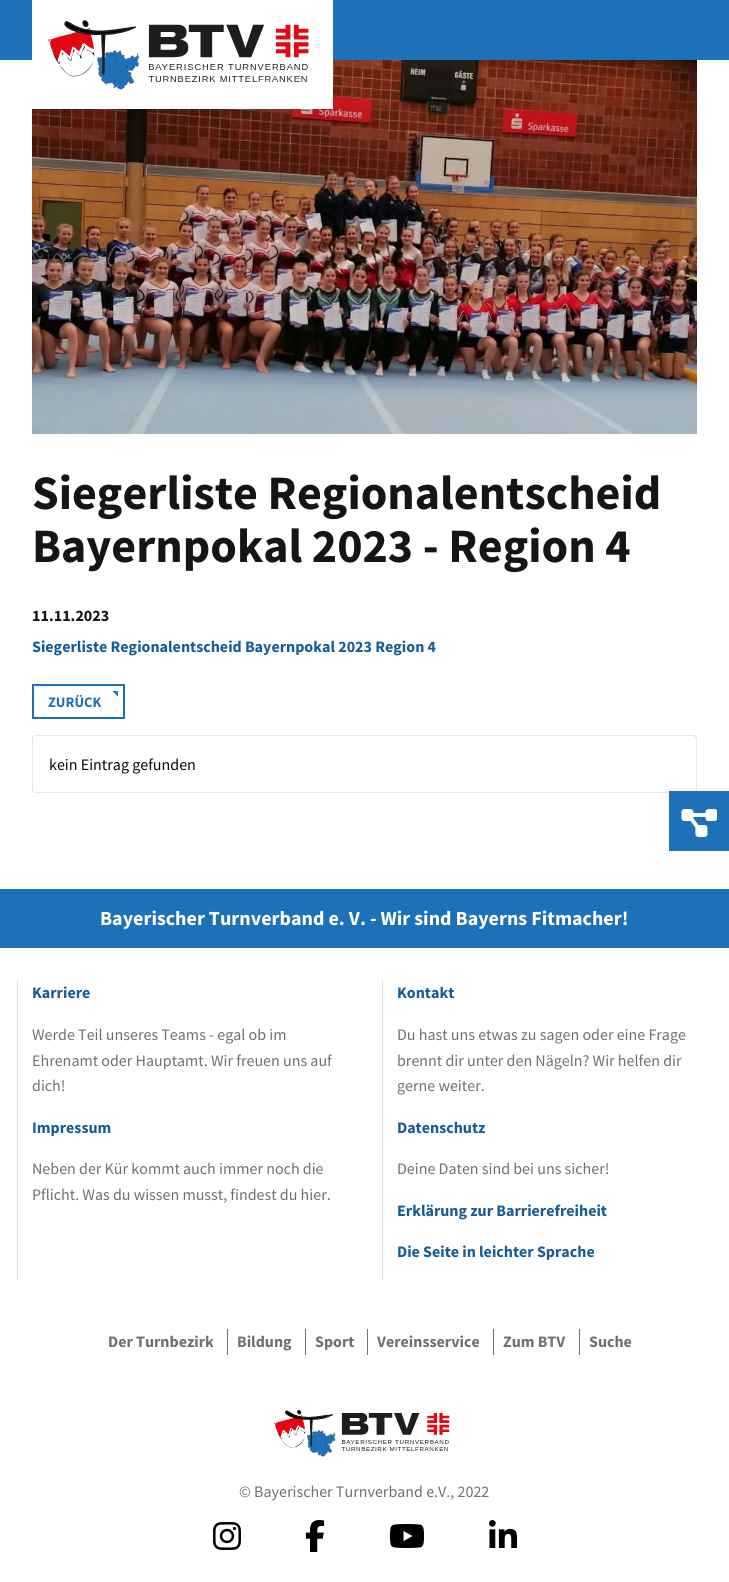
import math
import cairo

surface = cairo.ImageSurface(cairo.FORMAT_RGB24, 729, 1582)
cr = cairo.Context(surface)
options = cairo.FontOptions()
options.set_hint_metrics(cairo.HINT_METRICS_OFF)
options.set_hint_style(cairo.HINT_STYLE_NONE)
cr.set_font_options(options)
cr.set_miter_limit(4)


def rgb(code):
    cr.set_source_rgb(*(v / 255 for v in bytes.fromhex(code[-6:])))


def rrect(x, y, w, h, r):
    cr.new_sub_path()
    for i, (u, v) in enumerate([(x + w - r, y + h - r), (x + r, y + h - r), (x + r, y + r), (x + w - r, y + r)]):
        cr.arc(u, v, r, i * math.pi / 2, (i + 1) * math.pi / 2)
    cr.close_path()


def image(path, x, y, w, h):
    cr.save()
    cr.set_source_surface(cairo.ImageSurface.create_from_png(path), x, y)
    cr.rectangle(x, y, w, h)
    cr.fill()
    cr.restore()


rgb("#ffffff")
cr.paint()
rgb("#1d71b9")
cr.rectangle(0, 0, 729, 60)
cr.fill()
image("img/2.png", 32, 60, 665, 374)
rgb("#ffffff")
cr.rectangle(32, 0, 301, 109)
cr.fill()
image("img/1.png", 48, 20, 261, 70)
cr.rectangle(33, 685, 91, 33)
rgb("#1d71b9")
cr.stroke()
cr.new_path()
cr.move_to(112, 691)
cr.line_to(118, 691)
cr.line_to(115, 694)
cr.close_path()
cr.fill()
cr.new_path()
cr.move_to(118, 691)
cr.line_to(118, 697)
cr.line_to(115, 694)
cr.close_path()
cr.fill()
rgb("#ffffff")
cr.new_path()
cr.move_to(118, 697)
cr.line_to(112, 697)
cr.line_to(115, 694)
cr.close_path()
cr.fill()
cr.new_path()
cr.move_to(112, 697)
cr.line_to(112, 691)
cr.line_to(115, 694)
cr.close_path()
cr.fill()
rrect(32.5, 735.5, 664, 57, 3.5)
rgb("#e6e6e6")
cr.set_line_width(1)
cr.stroke()
rgb("#1d71b9")
cr.rectangle(669, 791, 60, 60)
cr.fill()
image("img/3.png", 681, 809, 36, 28)
for x, y, w, h, color in [
    (0, 889, 729, 59, "#1d71b9"),
    (382, 980, 1, 301, "#e1e1e1"),
    (17, 980, 1, 301, "#e1e1e1"),
    (227, 1329, 1, 26, "#707070"),
    (305, 1329, 1, 26, "#707070"),
    (367, 1329, 1, 26, "#707070"),
    (493, 1329, 1, 26, "#707070"),
    (579, 1329, 1, 26, "#707070"),
]:
    rgb(color)
    cr.rectangle(x, y, w, h)
    cr.fill()
image("img/4.png", 274, 1410, 176, 47)
image("img/5.png", 213, 1522, 28, 28)
image("img/6.png", 305, 1520, 20, 32)
image("img/7.png", 389, 1524, 36, 24)
image("img/8.png", 489, 1520, 28, 28)
cr.select_font_face("Source Sans Pro", cairo.FONT_SLANT_NORMAL, cairo.FONT_WEIGHT_BOLD)
cr.set_font_size(48)
rgb("#151515")
cr.move_to(32, 509)
cr.show_text("Siegerliste Regionalentscheid")
cr.move_to(32, 562)
cr.show_text("Bayernpokal 2023 - Region 4")
cr.set_font_size(16)
cr.move_to(32, 621)
cr.show_text("11.11.2023")
rgb("#185b96")
cr.move_to(32, 652)
cr.show_text("Siegerliste Regionalentscheid Bayernpokal 2023 Region 4")
cr.set_font_size(14.5)
rgb("#1d71b9")
cr.move_to(48, 707)
cr.show_text("ZURÜCK")
cr.select_font_face("Source Sans Pro")
cr.set_font_size(16)
rgb("#0a0a0a")
cr.move_to(49, 770)
cr.show_text("kein Eintrag gefunden")
cr.select_font_face("Source Sans Pro", cairo.FONT_SLANT_NORMAL, cairo.FONT_WEIGHT_BOLD)
cr.set_font_size(20)
rgb("#ffffff")
cr.move_to(100, 925)
cr.show_text("Bayerischer Turnverband e. V. - Wir sind Bayerns Fitmacher!")
cr.set_font_size(16)
rgb("#185b96")
cr.move_to(32, 998)
cr.show_text("Karriere")
cr.select_font_face("Source Sans Pro")
rgb("#707070")
for x, y, s in [
    (32, 1040, "Werde Teil unseres Teams - egal ob im"),
    (32, 1066, "Ehrenamt oder Hauptamt. Wir freuen uns auf"),
    (32, 1091, "dich!"),
]:
    cr.move_to(x, y)
    cr.show_text(s)
cr.select_font_face("Source Sans Pro", cairo.FONT_SLANT_NORMAL, cairo.FONT_WEIGHT_BOLD)
rgb("#185b96")
cr.move_to(397, 998)
cr.show_text("Kontakt")
cr.select_font_face("Source Sans Pro")
rgb("#707070")
for x, y, s in [
    (397, 1040, "Du hast uns etwas zu sagen oder eine Frage"),
    (397, 1066, "brennt dir unter den Nägeln? Wir helfen dir"),
    (397, 1091, "gerne weiter."),
]:
    cr.move_to(x, y)
    cr.show_text(s)
cr.select_font_face("Source Sans Pro", cairo.FONT_SLANT_NORMAL, cairo.FONT_WEIGHT_BOLD)
rgb("#185b96")
cr.move_to(32, 1133)
cr.show_text("Impressum")
cr.select_font_face("Source Sans Pro")
rgb("#707070")
cr.move_to(32, 1174)
cr.show_text("Neben der Kür kommt auch immer noch die")
cr.move_to(32, 1200)
cr.show_text("Pflicht. Was du wissen musst, findest du hier.")
cr.select_font_face("Source Sans Pro", cairo.FONT_SLANT_NORMAL, cairo.FONT_WEIGHT_BOLD)
rgb("#185b96")
cr.move_to(397, 1133)
cr.show_text("Datenschutz")
cr.select_font_face("Source Sans Pro")
rgb("#707070")
cr.move_to(397, 1174)
cr.show_text("Deine Daten sind bei uns sicher!")
cr.select_font_face("Source Sans Pro", cairo.FONT_SLANT_NORMAL, cairo.FONT_WEIGHT_BOLD)
rgb("#185b96")
cr.move_to(397, 1216)
cr.show_text("Erklärung zur Barrierefreiheit")
cr.move_to(397, 1257)
cr.show_text("Die Seite in leichter Sprache")
rgb("#707070")
for x, y, s in [
    (108, 1347, "Der Turnbezirk"),
    (237, 1347, "Bildung"),
    (315, 1347, "Sport"),
    (377, 1347, "Vereinsservice"),
    (503, 1347, "Zum BTV"),
    (589, 1347, "Suche"),
]:
    cr.move_to(x, y)
    cr.show_text(s)
cr.select_font_face("Source Sans Pro")
cr.move_to(239, 1497)
cr.show_text("© Bayerischer Turnverband e.V., 2022")
surface.write_to_png("page.png")
